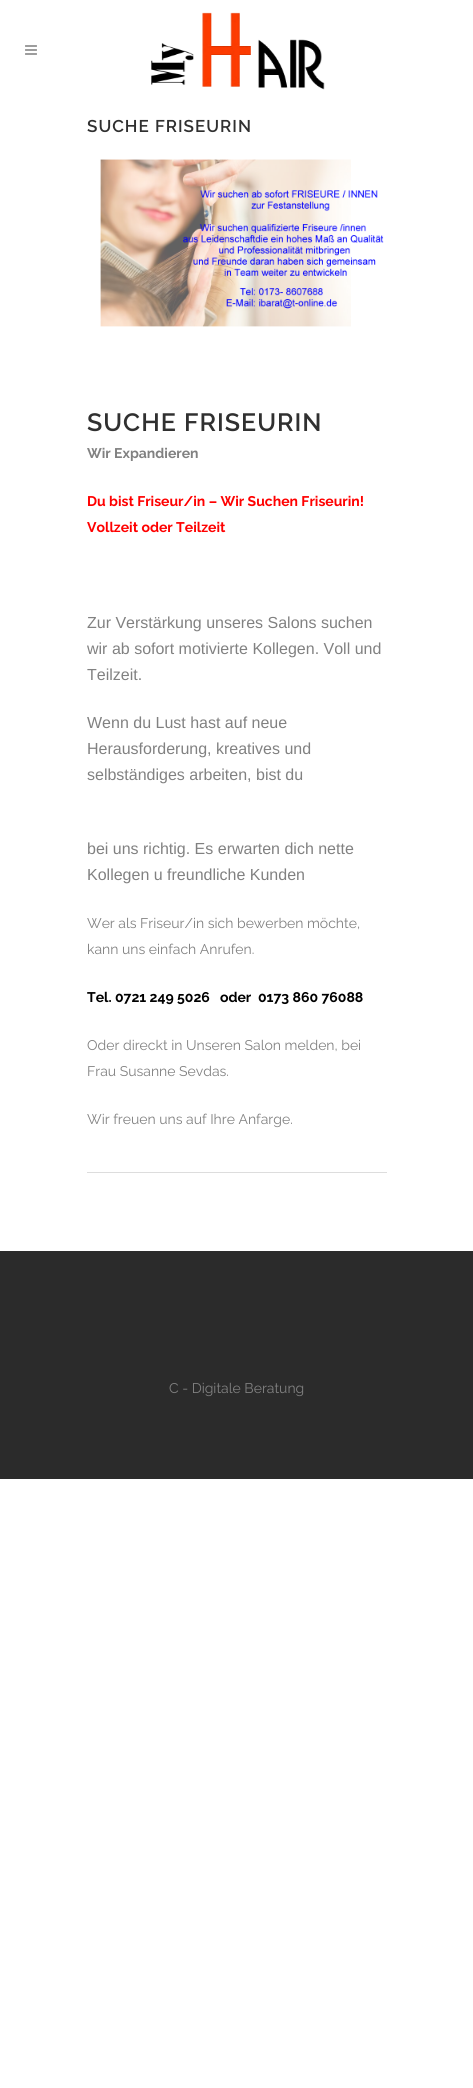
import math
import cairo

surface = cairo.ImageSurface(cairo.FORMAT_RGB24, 473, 2088)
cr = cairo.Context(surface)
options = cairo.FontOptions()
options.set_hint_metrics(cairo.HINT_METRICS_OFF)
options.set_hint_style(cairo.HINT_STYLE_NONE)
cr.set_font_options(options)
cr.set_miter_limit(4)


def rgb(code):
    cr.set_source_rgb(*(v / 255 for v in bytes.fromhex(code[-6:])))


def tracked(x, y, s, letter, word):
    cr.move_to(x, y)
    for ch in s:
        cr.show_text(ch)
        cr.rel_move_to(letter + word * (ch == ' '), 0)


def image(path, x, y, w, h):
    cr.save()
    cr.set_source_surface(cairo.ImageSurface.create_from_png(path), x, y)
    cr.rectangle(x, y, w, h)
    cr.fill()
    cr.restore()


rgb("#ffffff")
cr.paint()
image("img/1.png", 25, 45, 12, 10)
image("img/2.png", 151, 12, 174, 78)
image("img/3.png", 100, 159, 284, 168)
rgb("#dddddd")
cr.rectangle(87, 1172, 300, 1)
cr.fill()
rgb("#2b2b2b")
cr.rectangle(0, 1251, 473, 228)
cr.fill()
cr.select_font_face("Raleway SemiBold")
cr.set_font_size(17)
rgb("#303030")
tracked(87, 132, "SUCHE FRISEURIN", 1, 0)
cr.set_font_size(25)
tracked(87, 431, "SUCHE FRISEURIN", 1, 0)
cr.select_font_face("Raleway", cairo.FONT_SLANT_NORMAL, cairo.FONT_WEIGHT_BOLD)
cr.set_font_size(14)
rgb("#818181")
cr.move_to(87, 458)
cr.show_text("Wir Expandieren")
rgb("#ff0000")
cr.move_to(87, 506)
cr.show_text("Du bist Friseur/in – Wir Suchen Friseurin!")
cr.move_to(87, 532)
cr.show_text("Vollzeit oder Teilzeit")
cr.select_font_face("Liberation Sans")
cr.set_font_size(16)
rgb("#818181")
for x, y, s in [
    (87, 628, "Zur Verstärkung unseres Salons suchen"),
    (87, 654, "wir ab sofort motivierte Kollegen. Voll und"),
    (87, 680, "Teilzeit."),
    (87, 728, "Wenn du Lust hast auf neue"),
    (87, 754, "Herausforderung, kreatives und"),
    (87, 780, "selbständiges arbeiten, bist du"),
    (87, 854, "bei uns richtig. Es erwarten dich nette"),
    (87, 880, "Kollegen u freundliche Kunden"),
]:
    cr.move_to(x, y)
    cr.show_text(s)
cr.select_font_face("Raleway")
cr.set_font_size(14)
cr.move_to(87, 928)
cr.show_text("Wer als Friseur/in sich bewerben möchte,")
cr.move_to(87, 954)
cr.show_text("kann uns einfach Anrufen.")
cr.select_font_face("Raleway", cairo.FONT_SLANT_NORMAL, cairo.FONT_WEIGHT_BOLD)
rgb("#000000")
cr.move_to(87, 1002)
cr.show_text("Tel. 0721 249 5026   oder  0173 860 76088")
cr.select_font_face("Raleway")
rgb("#818181")
for x, y, s in [
    (87, 1050, "Oder direckt in Unseren Salon melden, bei"),
    (87, 1076, "Frau Susanne Sevdas."),
    (87, 1124, "Wir freuen uns auf Ihre Anfarge."),
    (169, 1393, "C - Digitale Beratung"),
]:
    cr.move_to(x, y)
    cr.show_text(s)
surface.write_to_png("page.png")
